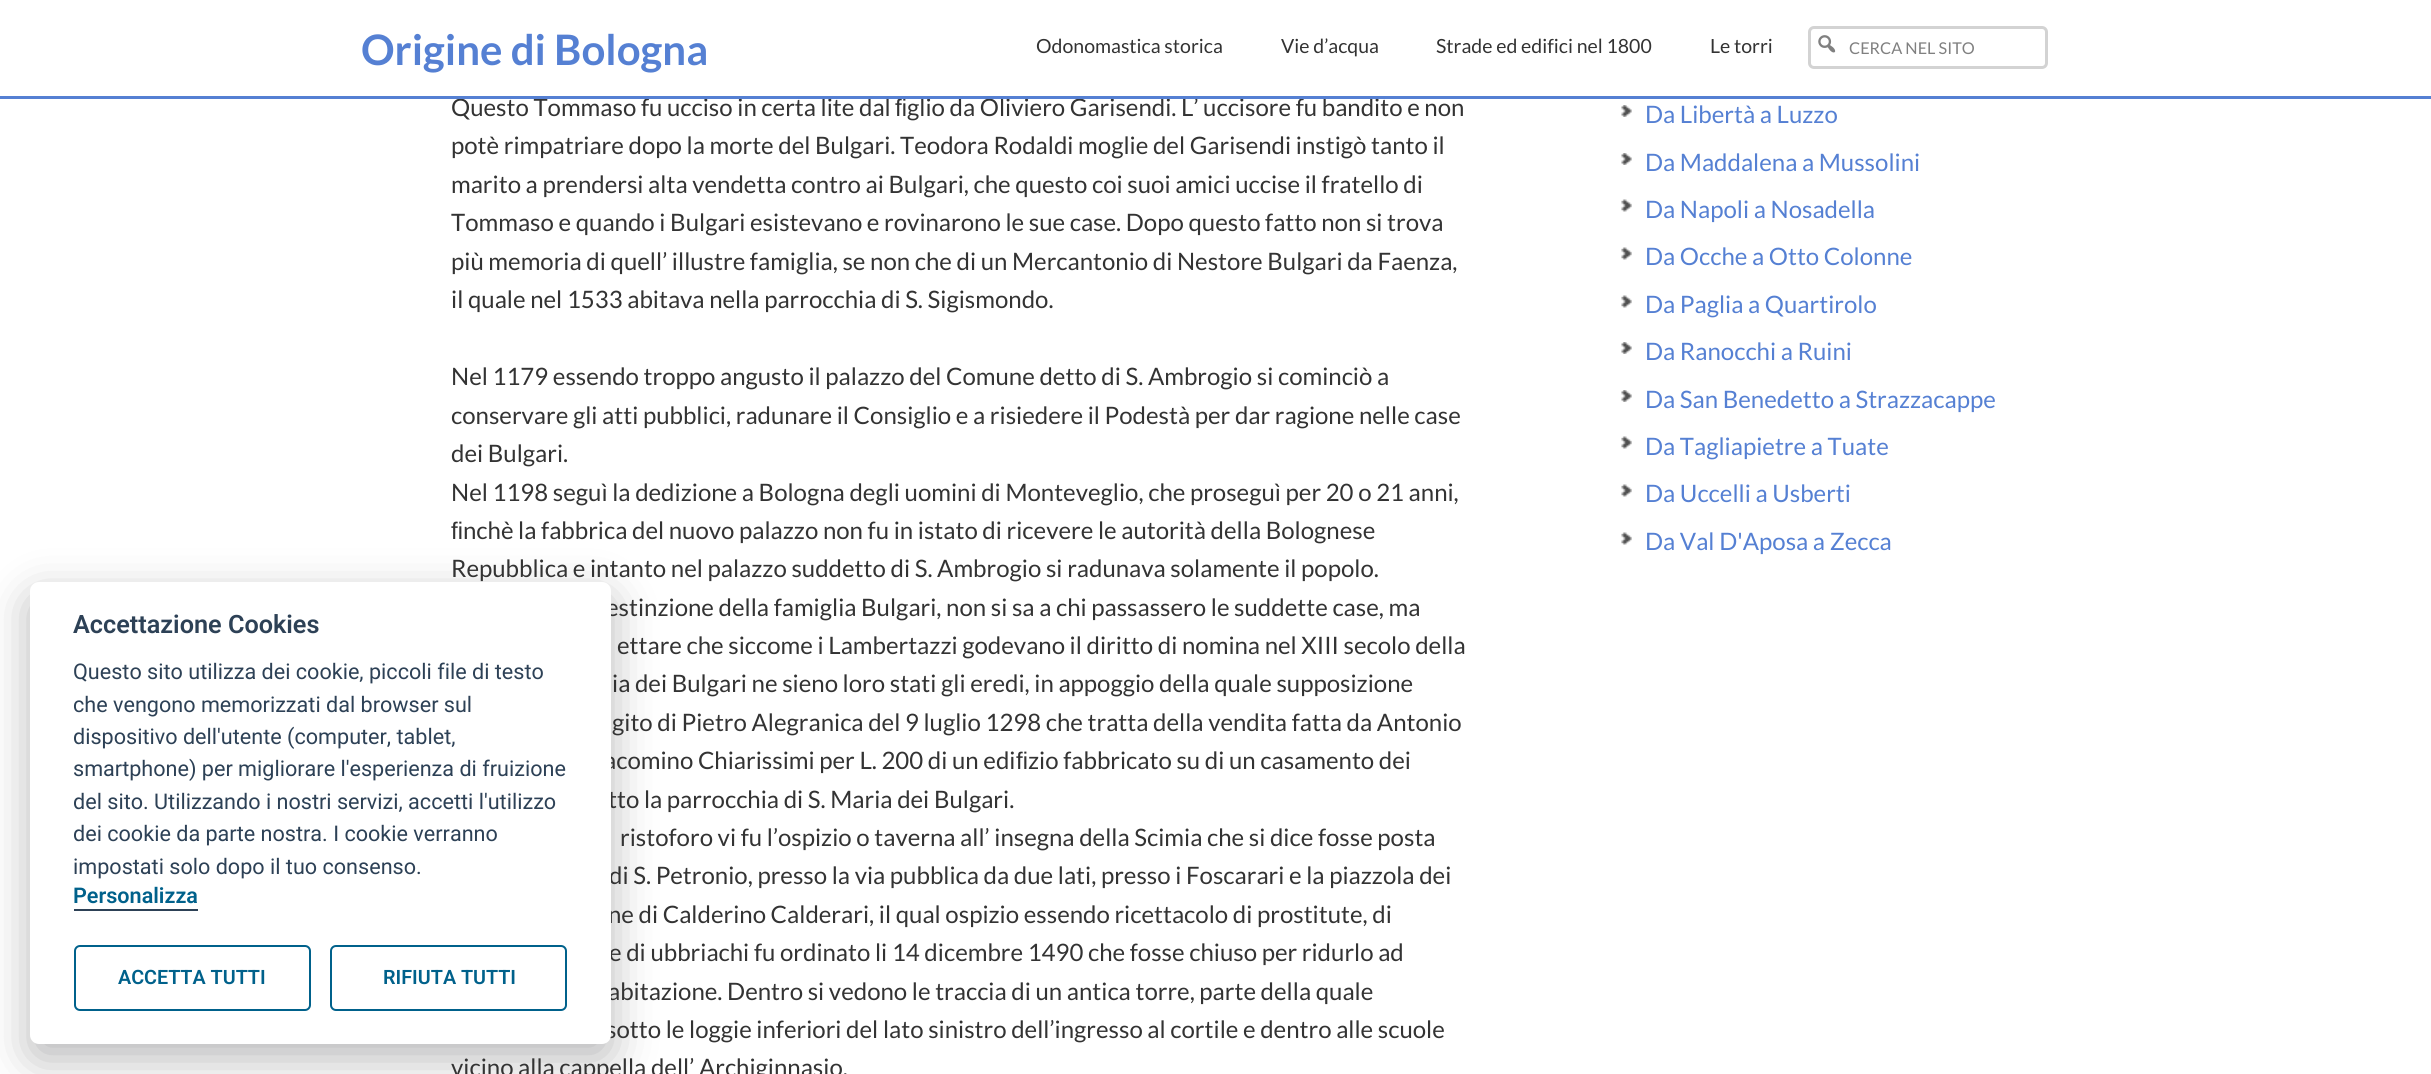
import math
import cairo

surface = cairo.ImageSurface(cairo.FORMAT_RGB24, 2431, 1074)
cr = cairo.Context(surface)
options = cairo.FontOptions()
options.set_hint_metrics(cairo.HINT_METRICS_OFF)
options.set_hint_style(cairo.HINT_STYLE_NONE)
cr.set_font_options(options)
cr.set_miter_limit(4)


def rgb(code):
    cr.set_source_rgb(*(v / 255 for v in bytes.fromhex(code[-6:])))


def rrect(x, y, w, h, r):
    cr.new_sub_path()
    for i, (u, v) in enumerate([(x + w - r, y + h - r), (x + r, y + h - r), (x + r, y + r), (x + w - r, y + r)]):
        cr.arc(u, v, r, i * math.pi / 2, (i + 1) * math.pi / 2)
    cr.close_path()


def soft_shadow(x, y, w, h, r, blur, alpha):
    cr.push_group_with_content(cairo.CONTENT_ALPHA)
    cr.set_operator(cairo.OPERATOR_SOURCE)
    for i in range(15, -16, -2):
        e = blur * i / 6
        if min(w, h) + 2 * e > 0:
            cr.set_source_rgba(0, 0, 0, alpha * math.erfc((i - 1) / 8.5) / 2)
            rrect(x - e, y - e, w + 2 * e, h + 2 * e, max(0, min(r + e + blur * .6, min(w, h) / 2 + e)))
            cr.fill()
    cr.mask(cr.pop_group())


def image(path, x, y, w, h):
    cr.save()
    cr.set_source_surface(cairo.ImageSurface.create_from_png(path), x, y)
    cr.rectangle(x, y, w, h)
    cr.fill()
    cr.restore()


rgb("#ffffff")
cr.paint()
rgb("#020203")
soft_shadow(30, 597, 581, 462, 9, 22.5, 0.28)
rrect(1809.5, 27.5, 237, 40, 4.5)
rgb("#d3d3d3")
cr.set_line_width(3)
cr.stroke()
image("img/1.png", 1818, 35, 18, 18)
image("img/2.png", 1621, 105, 11, 12)
image("img/2.png", 1621, 153, 11, 12)
image("img/3.png", 1621, 199, 11, 13)
image("img/3.png", 1621, 247, 11, 13)
image("img/3.png", 1621, 295, 11, 13)
image("img/2.png", 1621, 342, 11, 12)
image("img/2.png", 1621, 390, 11, 12)
image("img/3.png", 1621, 436, 11, 13)
image("img/3.png", 1621, 484, 11, 13)
image("img/3.png", 1621, 532, 11, 13)
cr.select_font_face("Lato", cairo.FONT_SLANT_NORMAL, cairo.FONT_WEIGHT_BOLD)
cr.set_font_size(42)
rgb("#5580d3")
cr.move_to(361, 65)
cr.show_text("Origine di Bologna")
cr.select_font_face("Lato")
cr.set_font_size(19.5)
rgb("#333333")
for x, y, s in [
    (1036, 53, "Odonomastica storica"),
    (1281, 53, "Vie d’acqua"),
    (1436, 53, "Strade ed edifici nel 1800"),
    (1710, 53, "Le torri"),
]:
    cr.move_to(x, y)
    cr.show_text(s)
cr.set_font_size(16.25)
rgb("#808080")
cr.move_to(1849, 54)
cr.show_text("CERCA NEL SITO")
cr.set_font_size(24)
rgb("#333333")
cr.move_to(451, 116)
cr.show_text("Questo Tommaso fu ucciso in certa lite dal")
cr.select_font_face("Liberation Sans")
cr.move_to(895, 116)
cr.show_text("ﬁ")
cr.select_font_face("Lato")
cr.move_to(907, 116)
cr.show_text("glio da Oliviero Garisendi. L’ uccisore fu bandito e non")
rgb("#5580d3")
cr.rectangle(0, 96, 2431, 3)
cr.fill()
rgb("#333333")
for x, y, s in [
    (451, 154, "potè rimpatriare dopo la morte del Bulgari. Teodora Rodaldi moglie del Garisendi instigò tanto il"),
    (451, 193, "marito a prendersi alta vendetta contro ai Bulgari, che questo coi suoi amici uccise il fratello di"),
    (451, 231, "Tommaso e quando i Bulgari esistevano e rovinarono le sue case. Dopo questo fatto non si trova"),
    (451, 270, "più memoria di quell’ illustre famiglia, se non che di un Mercantonio di Nestore Bulgari da Faenza,"),
    (451, 308, "il quale nel 1533 abitava nella parrocchia di S. Sigismondo."),
    (451, 385, "Nel 1179 essendo troppo angusto il palazzo del Comune detto di S. Ambrogio si cominciò a"),
    (451, 424, "conservare gli atti pubblici, radunare il Consiglio e a risiedere il Podestà per dar ragione nelle case"),
    (451, 462, "dei Bulgari."),
    (451, 501, "Nel 1198 seguì la dedizione a Bologna degli uomini di Monteveglio, che proseguì per 20 o 21 anni,"),
]:
    cr.move_to(x, y)
    cr.show_text(s)
cr.select_font_face("Liberation Sans")
cr.move_to(451, 539)
cr.show_text("ﬁ")
cr.select_font_face("Lato")
for x, y, s in [
    (463, 539, "nchè la fabbrica del nuovo palazzo non fu in istato di ricevere le autorità della Bolognese"),
    (451, 577, "Repubblica e intanto nel palazzo suddetto di S. Ambrogio si radunava solamente il popolo."),
    (606, 616, "estinzione della famiglia Bulgari, non si sa a chi passassero le suddette case, ma"),
    (617, 654, "ettare che siccome i Lambertazzi godevano il diritto di nomina nel XIII secolo della"),
    (612, 692, "ia dei Bulgari ne sieno loro stati gli eredi, in appoggio della quale supposizione"),
    (612, 731, "gito di Pietro Alegranica del 9 luglio 1298 che tratta della vendita fatta da Antonio"),
    (604, 769, "acomino Chiarissimi per L. 200 di un edi"),
]:
    cr.move_to(x, y)
    cr.show_text(s)
cr.select_font_face("Liberation Sans")
cr.move_to(1016, 769)
cr.show_text("ﬁ")
cr.select_font_face("Lato")
for x, y, s in [
    (1028, 769, "zio fabbricato su di un casamento dei"),
    (608, 808, "tto la parrocchia di S. Maria dei Bulgari."),
    (620, 846, "ristoforo vi fu l’ospizio o taverna all’ insegna della Scimia che si dice fosse posta"),
    (609, 884, "di S. Petronio, presso la via pubblica da due lati, presso i Foscarari e la piazzola dei"),
    (608, 923, "ne di Calderino Calderari, il qual ospizio essendo ricettacolo di prostitute, di"),
    (609, 961, "e di ubbriachi fu ordinato li 14 dicembre 1490 che fosse chiuso per ridurlo ad"),
    (608, 1000, "abitazione. Dentro si vedono le traccia di un antica torre, parte della quale"),
    (606, 1038, "sotto le loggie inferiori del lato sinistro dell’ingresso al cortile e dentro alle scuole"),
]:
    cr.move_to(x, y)
    cr.show_text(s)
rgb("#ffffff")
rrect(30, 582, 581, 462, 9)
cr.fill()
rrect(331, 946, 235, 64, 5)
rgb("#00618b")
cr.set_line_width(2)
cr.stroke()
cr.select_font_face("Roboto SemiBold")
cr.set_font_size(19.75)
cr.move_to(383, 984)
cr.show_text("RIFIUTA TUTTI")
rrect(75, 946, 235, 64, 5)
cr.stroke()
cr.move_to(118, 984)
cr.show_text("ACCETTA TUTTI")
cr.set_font_size(21.6)
cr.move_to(73, 903)
cr.show_text("Personalizza")
cr.select_font_face("Roboto")
rgb("#2d4156")
for x, y, s in [
    (73, 874, "impostati solo dopo il tuo consenso."),
    (73, 841, "dei cookie da parte nostra. I cookie verranno"),
    (73, 809, "del sito. Utilizzando i nostri servizi, accetti l'utilizzo"),
    (73, 776, "smartphone) per migliorare l'esperienza di fruizione"),
    (73, 744, "dispositivo dell'utente (computer, tablet,"),
    (73, 712, "che vengono memorizzati dal browser sul"),
    (73, 679, "Questo sito utilizza dei cookie, piccoli file di testo"),
]:
    cr.move_to(x, y)
    cr.show_text(s)
cr.select_font_face("Roboto SemiBold")
cr.set_font_size(25.25)
cr.move_to(73, 633)
cr.show_text("Accettazione Cookies")
cr.rectangle(74, 909, 124, 2)
cr.fill()
cr.select_font_face("Lato")
cr.set_font_size(24)
rgb("#333333")
cr.move_to(451, 1076)
cr.show_text("vicino alla cappella dell’ Archiginnasio.")
rgb("#5580d3")
for x, y, s in [
    (1645, 123, "Da Libertà a Luzzo"),
    (1645, 171, "Da Maddalena a Mussolini"),
    (1645, 218, "Da Napoli a Nosadella"),
    (1645, 265, "Da Ocche a Otto Colonne"),
    (1645, 313, "Da Paglia a Quartirolo"),
    (1645, 360, "Da Ranocchi a Ruini"),
    (1645, 408, "Da San Benedetto a Strazzacappe"),
    (1645, 455, "Da Tagliapietre a Tuate"),
    (1645, 502, "Da Uccelli a Usberti"),
    (1645, 550, "Da Val D'Aposa a Zecca"),
]:
    cr.move_to(x, y)
    cr.show_text(s)
surface.write_to_png("page.png")
